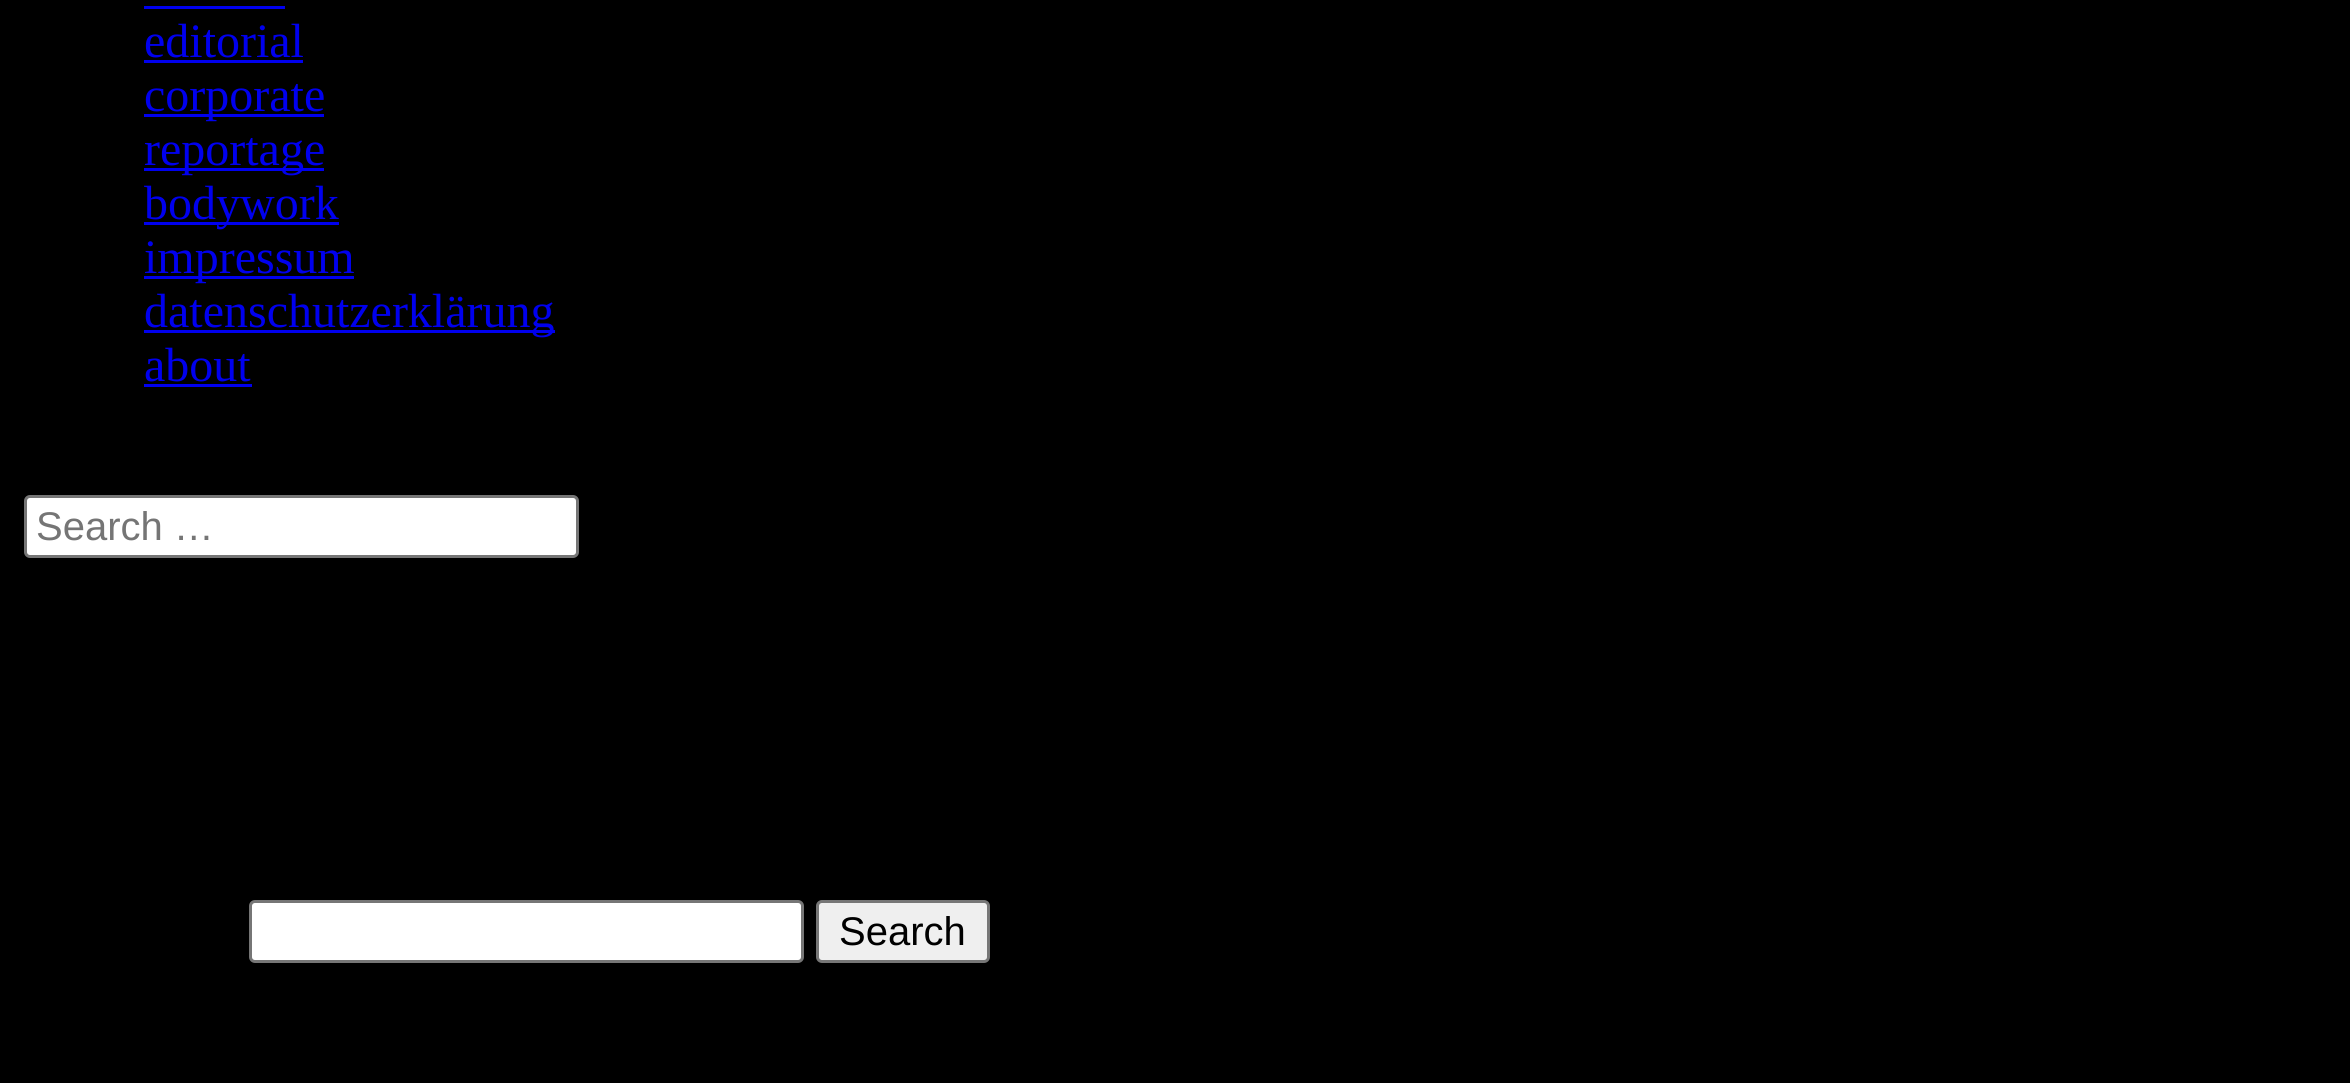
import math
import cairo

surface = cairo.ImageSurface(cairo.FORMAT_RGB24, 2350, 1083)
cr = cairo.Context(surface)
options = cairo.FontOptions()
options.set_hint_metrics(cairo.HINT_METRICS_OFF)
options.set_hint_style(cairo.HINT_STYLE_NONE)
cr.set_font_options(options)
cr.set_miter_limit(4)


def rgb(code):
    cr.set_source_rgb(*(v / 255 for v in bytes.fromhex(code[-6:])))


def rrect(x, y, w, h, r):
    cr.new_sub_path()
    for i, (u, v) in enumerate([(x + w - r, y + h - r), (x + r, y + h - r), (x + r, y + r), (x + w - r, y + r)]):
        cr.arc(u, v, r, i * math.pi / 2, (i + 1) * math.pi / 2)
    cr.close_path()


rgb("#000000")
cr.paint()
for x, y, w, h, color in [
    (144, 6, 141, 3, "#0000ee"),
    (144, 60, 159, 3, "#0000ee"),
    (144, 114, 180, 3, "#0000ee"),
    (144, 168, 180, 3, "#0000ee"),
    (144, 222, 195, 3, "#0000ee"),
    (144, 276, 210, 3, "#0000ee"),
    (144, 330, 411, 3, "#0000ee"),
    (144, 384, 108, 3, "#0000ee"),
]:
    rgb(color)
    cr.rectangle(x, y, w, h)
    cr.fill()
rgb("#ffffff")
rrect(25.5, 496.5, 552, 60, 4.5)
cr.fill_preserve()
rgb("#767676")
cr.set_line_width(3)
cr.stroke()
rgb("#ffffff")
rrect(250.5, 901.5, 552, 60, 4.5)
cr.fill_preserve()
rgb("#767676")
cr.stroke()
rgb("#efefef")
rrect(817.5, 901.5, 171, 60, 4.5)
cr.fill_preserve()
rgb("#767676")
cr.stroke()
cr.select_font_face("Liberation Serif")
cr.set_font_size(48)
rgb("#0000ee")
for x, y, s in [
    (144, 57, "editorial"),
    (144, 111, "corporate"),
    (144, 165, "reportage"),
    (144, 219, "bodywork"),
    (144, 273, "impressum"),
    (144, 327, "datenschutzerklärung"),
    (144, 381, "about"),
]:
    cr.move_to(x, y)
    cr.show_text(s)
cr.select_font_face("Liberation Sans")
cr.set_font_size(40)
rgb("#757575")
cr.move_to(36, 540)
cr.show_text("Search …")
rgb("#000000")
cr.move_to(839, 945)
cr.show_text("Search")
surface.write_to_png("page.png")
